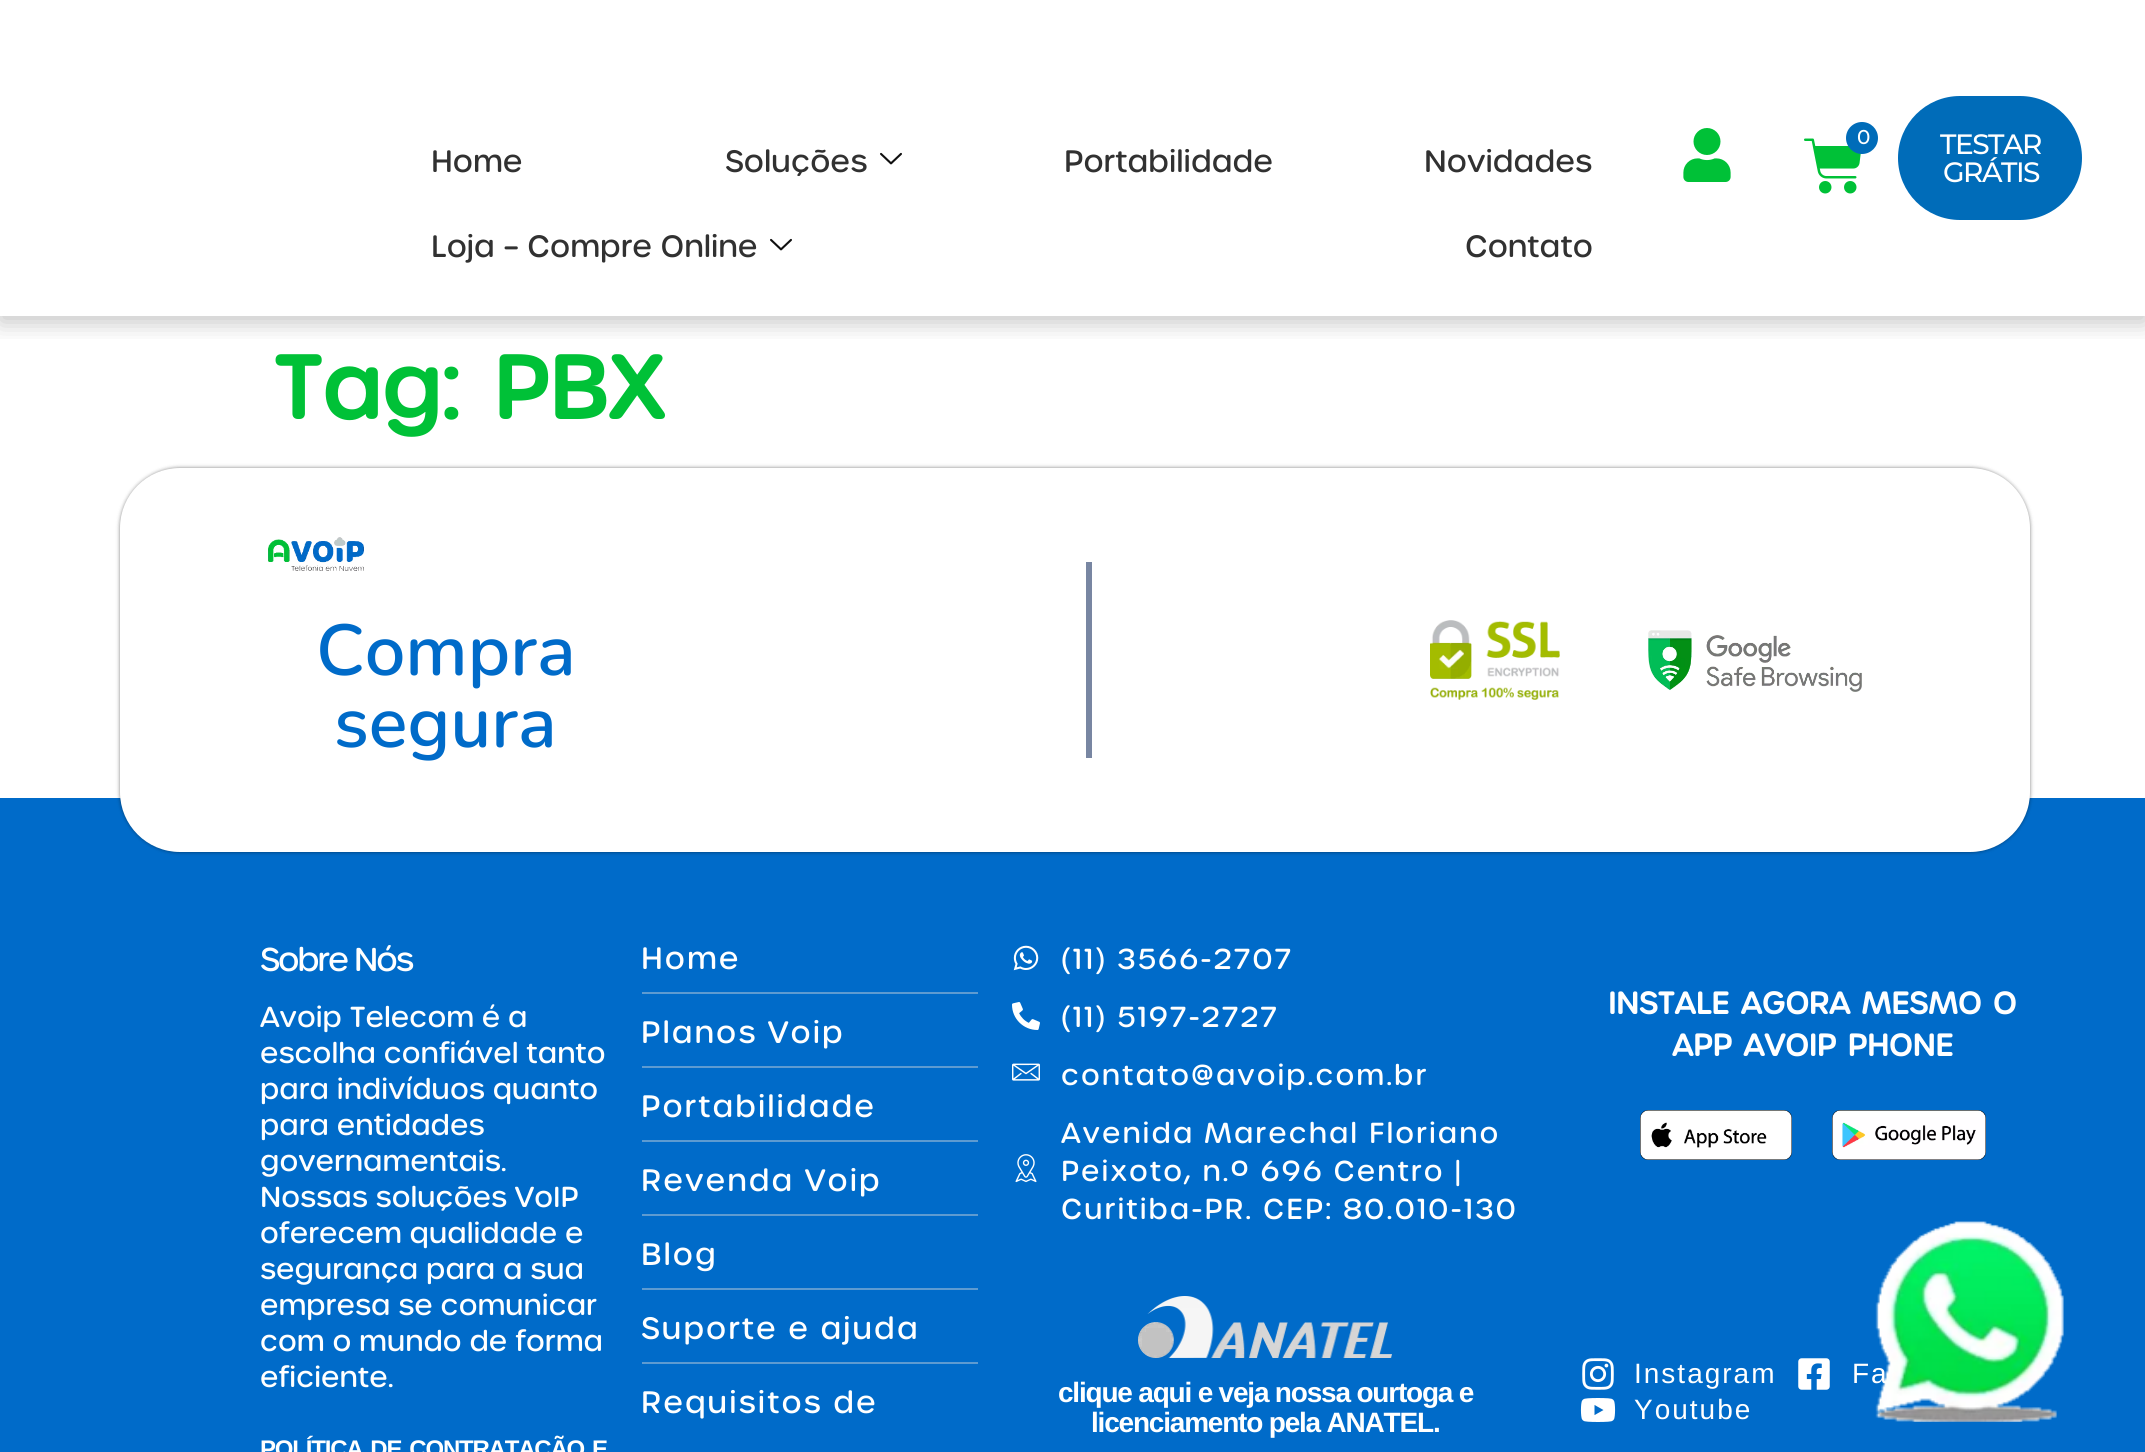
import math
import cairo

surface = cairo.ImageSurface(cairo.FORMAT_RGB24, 2145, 1452)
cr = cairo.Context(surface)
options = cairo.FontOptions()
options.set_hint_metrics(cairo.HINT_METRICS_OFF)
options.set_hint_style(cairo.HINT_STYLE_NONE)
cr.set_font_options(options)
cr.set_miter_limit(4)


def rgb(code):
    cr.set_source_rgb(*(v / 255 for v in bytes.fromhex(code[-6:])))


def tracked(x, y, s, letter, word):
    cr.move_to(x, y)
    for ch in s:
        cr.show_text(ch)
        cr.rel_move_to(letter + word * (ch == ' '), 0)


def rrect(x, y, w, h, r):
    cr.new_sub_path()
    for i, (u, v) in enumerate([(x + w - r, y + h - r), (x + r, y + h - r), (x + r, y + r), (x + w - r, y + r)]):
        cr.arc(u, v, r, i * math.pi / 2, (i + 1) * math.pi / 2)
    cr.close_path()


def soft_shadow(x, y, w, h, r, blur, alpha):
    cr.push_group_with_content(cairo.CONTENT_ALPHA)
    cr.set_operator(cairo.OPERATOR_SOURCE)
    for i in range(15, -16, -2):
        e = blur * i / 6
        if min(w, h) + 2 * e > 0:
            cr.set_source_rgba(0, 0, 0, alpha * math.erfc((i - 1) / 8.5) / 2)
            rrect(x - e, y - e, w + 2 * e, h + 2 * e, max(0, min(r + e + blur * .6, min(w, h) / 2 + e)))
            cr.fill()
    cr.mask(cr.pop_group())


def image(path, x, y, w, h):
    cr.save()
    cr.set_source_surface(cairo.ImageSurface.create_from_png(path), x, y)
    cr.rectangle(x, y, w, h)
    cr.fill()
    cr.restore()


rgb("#ffffff")
cr.paint()
cr.save()
cr.rectangle(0, 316, 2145, 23)
cr.clip()
rgb("#000000")
soft_shadow(0, 6, 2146, 316, 0, 12, 0.24)
cr.restore()
image("img/1.png", 880, 152, 22, 13)
image("img/1.png", 770, 238, 22, 13)
image("img/2.png", 1683, 128, 48, 54)
image("img/3.png", 1804, 138, 57, 56)
rgb("#006cb9")
cr.arc(1862, 138, 16, 0, 2 * math.pi)
cr.fill()
rrect(1898, 96, 184, 124, 62)
cr.fill()
rgb("#006bc9")
cr.rectangle(0, 798, 2145, 654)
cr.fill()
rgb("#000000")
soft_shadow(120, 468, 1910, 384, 60, 2, 0.5)
rgb("#ffffff")
rrect(120, 468, 1910, 384, 60)
cr.fill()
image("img/4.png", 268, 537, 96, 34)
rgb("#7886a2")
cr.rectangle(1086, 562, 6, 196)
cr.fill()
image("img/5.png", 1430, 620, 130, 80)
image("img/6.png", 1648, 630, 214, 62)
for x, y, w, h, color in [
    (642, 992, 336, 2, "#5d9bd1"),
    (642, 1066, 336, 2, "#5d9bd1"),
    (642, 1140, 336, 2, "#5d9bd1"),
    (642, 1214, 336, 2, "#5d9bd1"),
    (642, 1288, 336, 2, "#5d9bd1"),
    (642, 1362, 336, 2, "#5d9bd1"),
]:
    rgb(color)
    cr.rectangle(x, y, w, h)
    cr.fill()
image("img/7.png", 1013, 945, 26, 26)
image("img/8.png", 1012, 1002, 28, 28)
image("img/9.png", 1012, 1063, 28, 18)
image("img/10.png", 1015, 1154, 22, 29)
image("img/11.png", 1138, 1296, 254, 62)
image("img/12.png", 1640, 1110, 152, 50)
image("img/13.png", 1832, 1110, 154, 50)
image("img/14.png", 1582, 1358, 32, 32)
image("img/15.png", 1798, 1358, 32, 32)
image("img/16.png", 1580, 1398, 36, 24)
cr.select_font_face("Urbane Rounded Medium")
cr.set_font_size(30)
rgb("#313131")
for x, y, s in [
    (431, 172, "Home"),
    (725, 172, "Soluções"),
    (1064, 172, "Portabilidade"),
    (1424, 172, "Novidades"),
    (431, 257, "Loja – Compre Online"),
    (1465, 257, "Contato"),
]:
    cr.move_to(x, y)
    cr.show_text(s)
cr.select_font_face("Montserrat Medium")
cr.set_font_size(20)
rgb("#ffffff")
tracked(1857, 144, "0", -1.5, 0)
cr.set_font_size(28)
tracked(1940, 154, "TESTAR", -1.5, 0)
tracked(1943, 182, "GRÁTIS", -1.5, 0)
cr.select_font_face("Urbane Rounded", cairo.FONT_SLANT_NORMAL, cairo.FONT_WEIGHT_BOLD)
cr.set_font_size(86)
rgb("#00c137")
cr.move_to(273, 419)
cr.show_text("Tag:")
cr.move_to(493, 419)
cr.show_text("PBX")
cr.select_font_face("Nunito SemiBold")
cr.set_font_size(72)
rgb("#006bc9")
cr.move_to(316, 675)
cr.show_text("Compra")
cr.move_to(334, 747)
cr.show_text("segura")
cr.select_font_face("Urbane Rounded Medium")
cr.set_font_size(32)
rgb("#ffffff")
tracked(260, 971, "Sobre Nós", -2, 0)
cr.set_font_size(28)
for x, y, s in [
    (260, 1027, "Avoip Telecom é a"),
    (260, 1063, "escolha confiável tanto"),
    (260, 1099, "para indivíduos quanto"),
    (260, 1135, "para entidades"),
    (260, 1171, "governamentais."),
    (260, 1207, "Nossas soluções VoIP"),
    (260, 1243, "oferecem qualidade e"),
    (260, 1279, "segurança para a sua"),
    (260, 1315, "empresa se comunicar"),
    (260, 1351, "com o mundo de forma"),
    (260, 1387, "eficiente."),
]:
    cr.move_to(x, y)
    cr.show_text(s)
cr.select_font_face("Liberation Sans", cairo.FONT_SLANT_NORMAL, cairo.FONT_WEIGHT_BOLD)
cr.set_font_size(24)
tracked(260, 1457, "POLÍTICA DE CONTRATAÇÃO E", -1.2, 2.5)
cr.select_font_face("Urbane Rounded Medium")
cr.set_font_size(30)
for x, y, s in [
    (641, 969, "Home"),
    (641, 1043, "Planos Voip"),
    (641, 1117, "Portabilidade"),
    (641, 1191, "Revenda Voip"),
    (641, 1265, "Blog"),
    (641, 1339, "Suporte e ajuda"),
    (641, 1413, "Requisitos de"),
]:
    tracked(x, y, s, 2, 0)
cr.set_font_size(28)
for x, y, s in [
    (1061, 969, "(11) 3566-2707"),
    (1061, 1027, "(11) 5197-2727"),
    (1061, 1085, "contato@avoip.com.br"),
    (1061, 1143, "Avenida Marechal Floriano"),
    (1061, 1181, "Peixoto, n.º 696 Centro |"),
    (1061, 1219, "Curitiba-PR. CEP: 80.010-130"),
]:
    tracked(x, y, s, 2, 0)
cr.select_font_face("Liberation Sans", cairo.FONT_SLANT_NORMAL, cairo.FONT_WEIGHT_BOLD)
tracked(1058, 1402, "clique aqui e veja nossa ourtoga e", -1.2, 0)
tracked(1091, 1432, "licenciamento pela ANATEL.", -1.2, 0)
cr.select_font_face("Urbane Rounded", cairo.FONT_SLANT_NORMAL, cairo.FONT_WEIGHT_BOLD)
cr.set_font_size(30)
tracked(1608, 1014, "INSTALE AGORA MESMO O", 0, 3)
tracked(1672, 1056, "APP AVOIP PHONE", 0, 3)
cr.select_font_face("Liberation Sans")
cr.set_font_size(28)
for x, y, s in [
    (1634, 1383, "Instagram"),
    (1852, 1383, "Fa"),
    (1634, 1419, "Youtube"),
]:
    tracked(x, y, s, 2, 0)
image("img/17.png", 1875, 1221, 189, 201)
surface.write_to_png("page.png")
